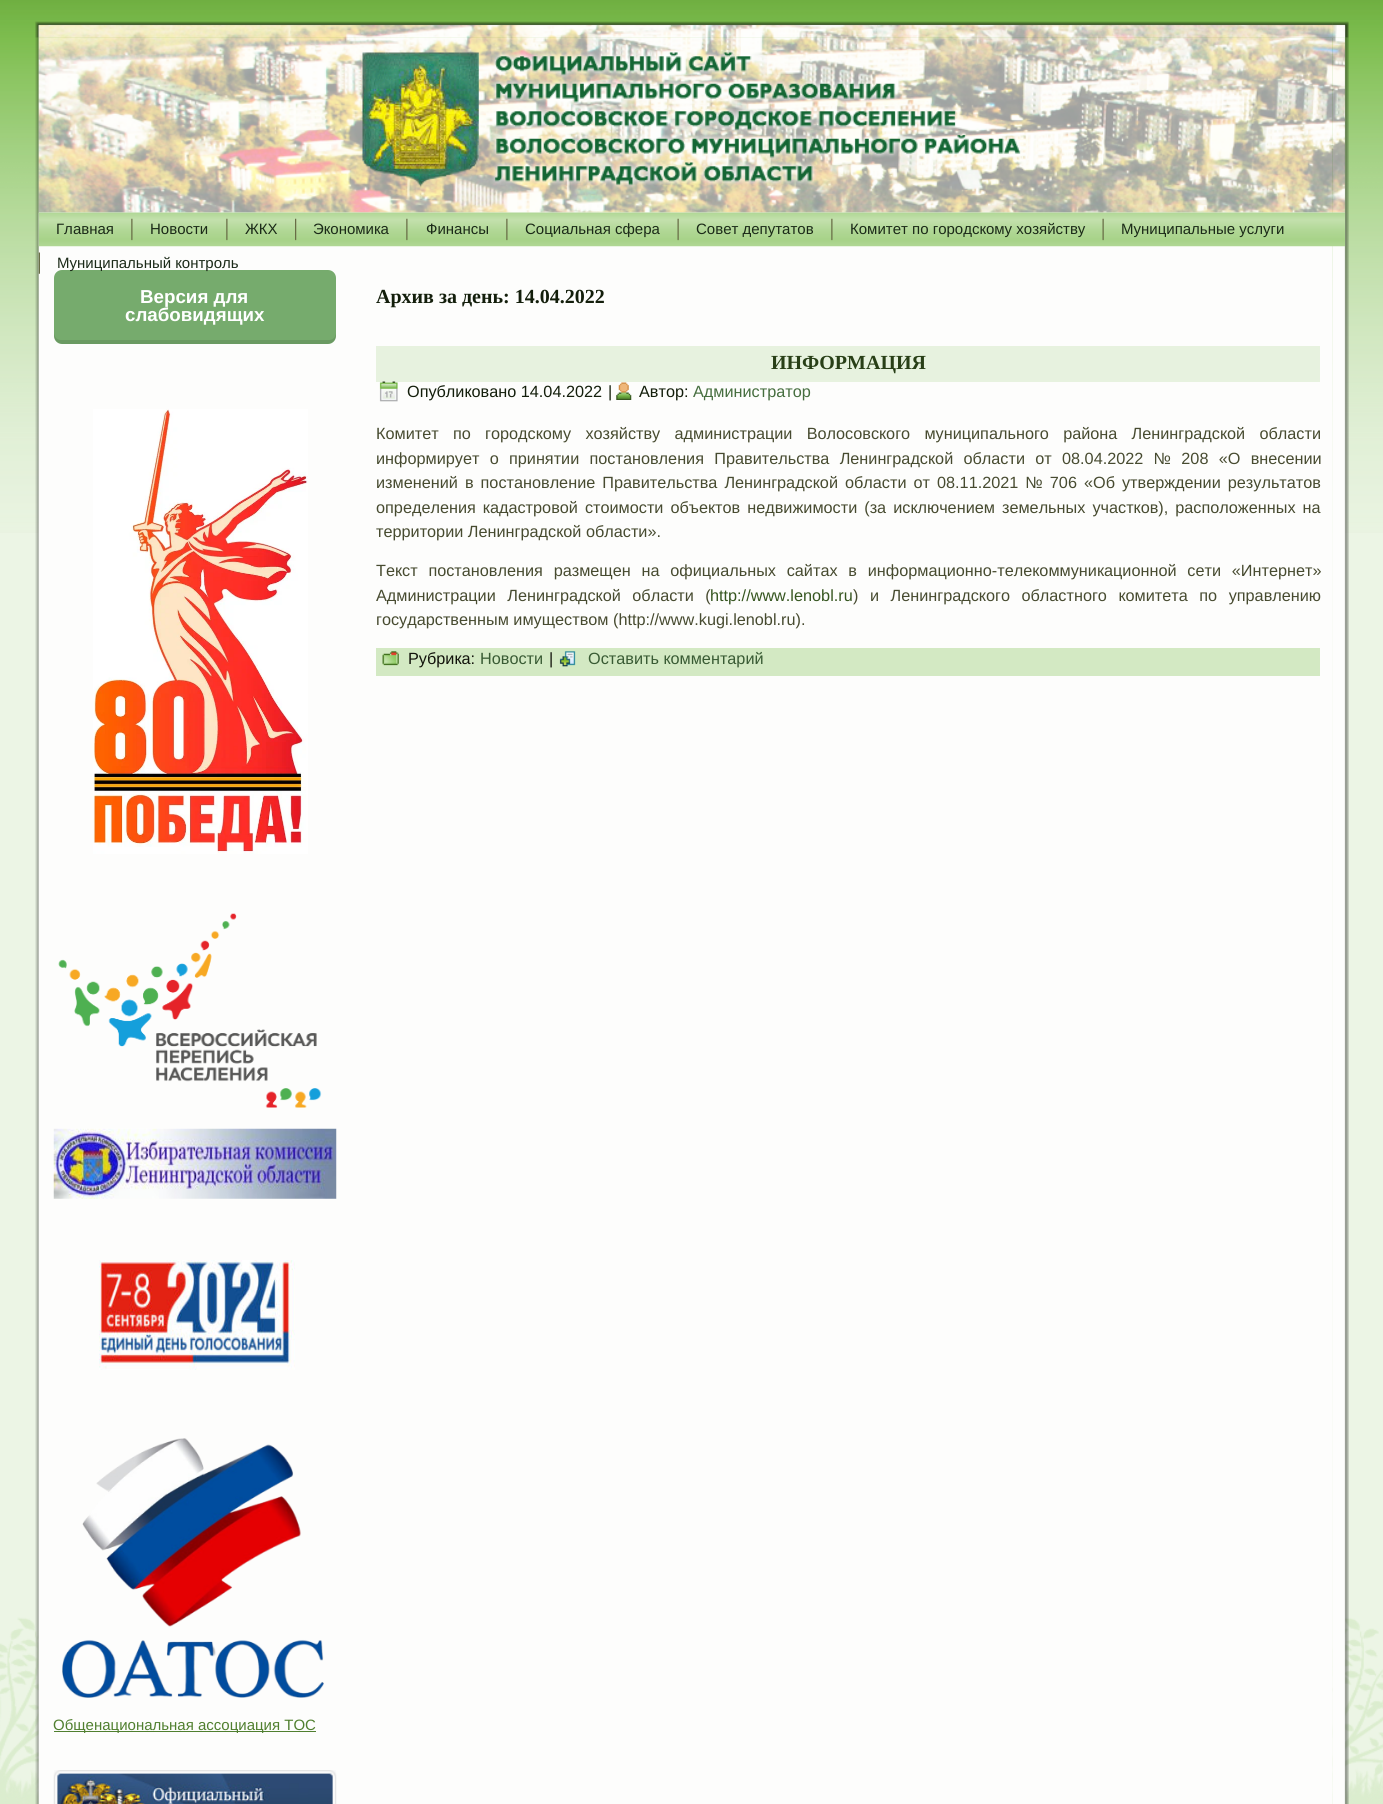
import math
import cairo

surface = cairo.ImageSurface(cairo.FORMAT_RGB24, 1383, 1804)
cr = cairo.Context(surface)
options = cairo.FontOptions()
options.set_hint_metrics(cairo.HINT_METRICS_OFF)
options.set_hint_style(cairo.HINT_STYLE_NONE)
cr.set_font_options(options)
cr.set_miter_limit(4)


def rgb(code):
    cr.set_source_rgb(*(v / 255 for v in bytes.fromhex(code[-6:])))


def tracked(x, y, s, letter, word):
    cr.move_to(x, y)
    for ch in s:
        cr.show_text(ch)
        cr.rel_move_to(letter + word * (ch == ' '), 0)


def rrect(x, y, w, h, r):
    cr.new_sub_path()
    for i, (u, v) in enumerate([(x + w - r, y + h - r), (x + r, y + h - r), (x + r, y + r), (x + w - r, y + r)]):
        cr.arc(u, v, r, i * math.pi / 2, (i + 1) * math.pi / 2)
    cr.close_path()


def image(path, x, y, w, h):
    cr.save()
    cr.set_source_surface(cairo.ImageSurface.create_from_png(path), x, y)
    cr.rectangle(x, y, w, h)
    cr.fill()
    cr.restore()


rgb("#ecf5e5")
cr.paint()
image("img/1.png", 0, 0, 1383, 533)
image("img/2.png", 0, 1617, 1383, 187)
image("img/3.png", 35, 21, 1298, 17)
image("img/4.png", 35, 21, 1298, 17)
image("img/9.png", 35, 37, 1298, 1767)
image("img/10.png", 1332, 37, 17, 1767)
image("img/5.png", 1332, 21, 17, 17)
image("img/6.png", 1332, 21, 17, 17)
image("img/7.png", 38, 25, 1307, 188)
image("img/8.png", 362, 50, 659, 138)
image("img/11.png", 38, 212, 1307, 35)
image("img/12.png", 131, 218, 2, 23)
image("img/12.png", 226, 218, 2, 23)
image("img/13.png", 295, 218, 2, 23)
image("img/12.png", 406, 218, 2, 23)
image("img/12.png", 506, 218, 2, 23)
image("img/14.png", 677, 218, 2, 23)
image("img/12.png", 831, 218, 2, 23)
image("img/14.png", 1102, 218, 2, 23)
image("img/15.png", 38, 252, 2, 22)
rgb("#76ab6d")
rrect(54, 270, 282, 74, 8)
cr.fill()
cr.set_source_rgba(0, 0, 0, 0.1)
cr.new_path()
cr.move_to(54, 332)
cr.line_to(54, 336)
cr.curve_to(54, 340, 58, 344, 62, 344)
cr.line_to(328, 344)
cr.curve_to(332, 344, 336, 340, 336, 336)
cr.line_to(336, 332)
cr.curve_to(336, 337, 333, 340, 329, 340)
cr.line_to(61, 340)
cr.curve_to(57, 340, 54, 337, 54, 332)
cr.close_path()
cr.fill()
image("img/16.png", 93, 409, 215, 445)
image("img/17.png", 58, 913, 264, 195)
image("img/18.png", 53, 1128, 284, 71)
image("img/19.png", 99, 1260, 196, 110)
image("img/20.png", 62, 1438, 262, 260)
rgb("#507f2f")
cr.rectangle(54, 1731, 262, 1)
cr.fill()
image("img/21.png", 53, 1770, 284, 34)
image("img/22.png", 379, 381, 19, 21)
cr.set_source_rgba(0.827, 0.914, 0.765, 0.5)
cr.rectangle(376, 346, 944, 36)
cr.fill()
image("img/23.png", 616, 382, 16, 18)
rgb("#d3e9c3")
cr.rectangle(376, 648, 944, 28)
cr.fill()
image("img/24.png", 382, 651, 17, 15)
image("img/25.png", 559, 651, 17, 16)
cr.select_font_face("Liberation Sans")
cr.set_font_size(15)
rgb("#1b2a18")
for x, y, s in [
    (56, 234, "Главная"),
    (150, 234, "Новости"),
    (245, 234, "ЖКХ"),
    (313, 234, "Экономика"),
    (426, 234, "Финансы"),
    (525, 234, "Социальная сфера"),
    (696, 234, "Совет депутатов"),
    (850, 234, "Комитет по городскому хозяйству"),
    (1121, 234, "Муниципальные услуги"),
    (57, 268, "Муниципальный контроль"),
]:
    cr.move_to(x, y)
    cr.show_text(s)
cr.select_font_face("Liberation Sans", cairo.FONT_SLANT_NORMAL, cairo.FONT_WEIGHT_BOLD)
cr.set_font_size(18.75)
rgb("#ffffff")
cr.move_to(140, 303)
cr.show_text("Версия для")
cr.move_to(125, 321)
cr.show_text("слабовидящих")
cr.select_font_face("Liberation Sans")
cr.set_font_size(15)
rgb("#507f2f")
cr.move_to(53, 1730)
cr.show_text("Общенациональная ассоциация ТОС")
cr.select_font_face("Liberation Serif", cairo.FONT_SLANT_NORMAL, cairo.FONT_WEIGHT_BOLD)
cr.set_font_size(20)
rgb("#131e0b")
cr.move_to(376, 303)
cr.show_text("Архив за день: 14.04.2022")
rgb("#283f17")
cr.move_to(771, 369)
cr.show_text("ИНФОРМАЦИЯ")
cr.select_font_face("Liberation Sans")
cr.set_font_size(16.25)
rgb("#131e0b")
for x, y, s in [
    (407, 397, "Опубликовано 14.04.2022"),
    (608, 397, "|"),
    (639, 397, "Автор:"),
]:
    cr.move_to(x, y)
    cr.show_text(s)
rgb("#466e3f")
cr.move_to(693, 397)
cr.show_text("Администратор")
rgb("#474b30")
tracked(376, 439, "Комитет по городскому хозяйству администрации Волосовского муниципального района Ленинградской области", 0, 9.75)
tracked(376, 464, "информирует о принятии постановления Правительства Ленинградской области от 08.04.2022 № 208 «О внесении", 0, 5.75)
tracked(376, 488, "изменений в постановление Правительства Ленинградской области от 08.11.2021 № 706 «Об утверждении результатов", 0, 2.5)
tracked(376, 513, "определения кадастровой стоимости объектов недвижимости (за исключением земельных участков), расположенных на", 0, 2.5)
cr.move_to(376, 537)
cr.show_text("территории Ленинградской области».")
tracked(376, 576, "Текст постановления размещен на официальных сайтах в информационно-телекоммуникационной сети «Интернет»", 0, 6.25)
tracked(376, 601, "Администрации Ленинградской области (", 0, 7)
rgb("#365620")
cr.move_to(710, 601)
cr.show_text("http://www.lenobl.ru")
rgb("#474b30")
tracked(853, 601, ") и Ленинградского областного комитета по управлению", 0, 7)
cr.move_to(376, 625)
cr.show_text("государственным имуществом (http://www.kugi.lenobl.ru).")
rgb("#12130c")
cr.move_to(408, 664)
cr.show_text("Рубрика:")
rgb("#395b34")
cr.move_to(480, 664)
cr.show_text("Новости")
rgb("#12130c")
cr.move_to(549, 664)
cr.show_text("|")
rgb("#395b34")
cr.move_to(588, 664)
cr.show_text("Оставить комментарий")
surface.write_to_png("page.png")
